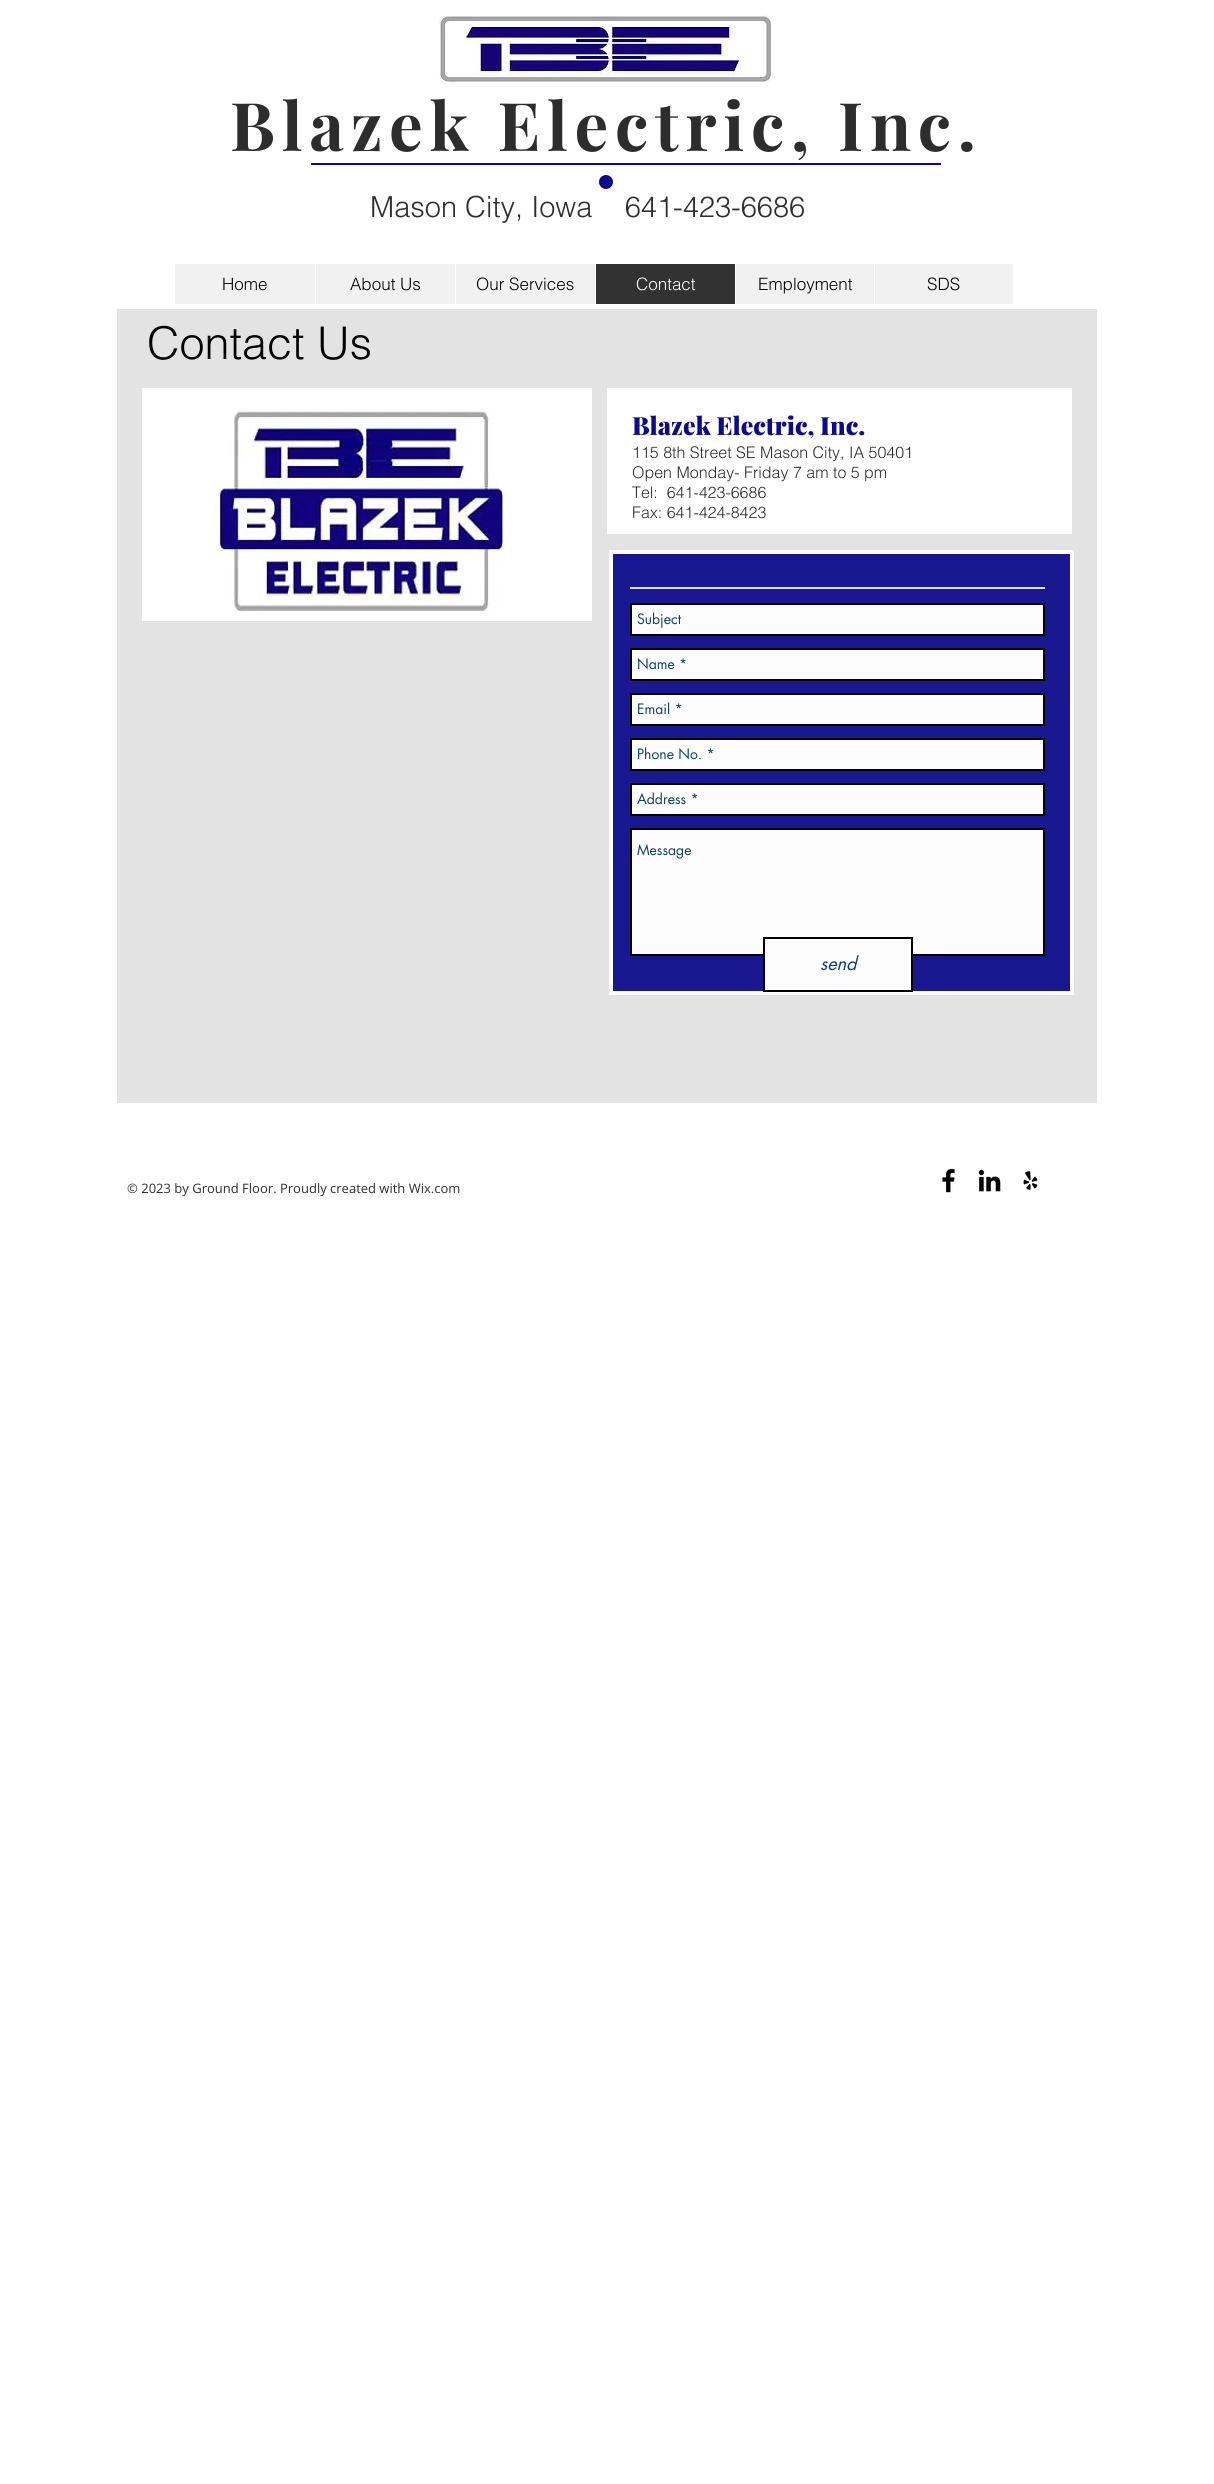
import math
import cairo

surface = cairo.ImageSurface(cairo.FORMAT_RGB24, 1214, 2484)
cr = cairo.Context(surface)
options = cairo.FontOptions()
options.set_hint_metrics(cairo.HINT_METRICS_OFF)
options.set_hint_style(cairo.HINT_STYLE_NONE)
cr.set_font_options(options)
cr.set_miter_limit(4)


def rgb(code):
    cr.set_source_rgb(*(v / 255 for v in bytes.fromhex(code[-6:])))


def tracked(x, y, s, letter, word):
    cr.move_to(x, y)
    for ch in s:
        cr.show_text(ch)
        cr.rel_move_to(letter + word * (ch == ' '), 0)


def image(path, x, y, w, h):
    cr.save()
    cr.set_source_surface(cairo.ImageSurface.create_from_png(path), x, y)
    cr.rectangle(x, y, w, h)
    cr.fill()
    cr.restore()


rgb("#ffffff")
cr.paint()
image("img/1.png", 439, 14, 332, 68)
rgb("#0d0b8c")
cr.rectangle(311, 163, 630, 2)
cr.fill()
image("img/2.png", 599, 175, 14, 14)
for x, y, w, h, color in [
    (175, 264, 838, 40, "#f1f1f1"),
    (315, 264, 1, 40, "#ffffff"),
    (455, 264, 1, 40, "#ffffff"),
    (596, 264, 139, 40, "#323232"),
    (595, 264, 1, 40, "#ffffff"),
    (735, 264, 1, 40, "#ffffff"),
    (874, 264, 1, 40, "#ffffff"),
    (117, 309, 980, 794, "#e3e3e3"),
    (142, 388, 450, 233, "#ffffff"),
]:
    rgb(color)
    cr.rectangle(x, y, w, h)
    cr.fill()
image("img/3.png", 214, 409, 296, 203)
cr.rectangle(607, 388, 465, 146)
cr.fill()
rgb("#1a1891")
cr.rectangle(611, 552, 461, 441)
cr.fill_preserve()
rgb("#ffffff")
cr.set_line_width(4)
cr.stroke()
rgb("#e3e3e3")
cr.rectangle(630, 587, 415, 2)
cr.fill()
rgb("#fcfcfc")
cr.rectangle(631, 604, 413, 31)
cr.fill_preserve()
rgb("#000000")
cr.set_line_width(2)
cr.stroke()
rgb("#fcfcfc")
cr.rectangle(631, 649, 413, 31)
cr.fill_preserve()
rgb("#000000")
cr.stroke()
rgb("#fcfcfc")
cr.rectangle(631, 694, 413, 31)
cr.fill_preserve()
rgb("#000000")
cr.stroke()
rgb("#fcfcfc")
cr.rectangle(631, 739, 413, 31)
cr.fill_preserve()
rgb("#000000")
cr.stroke()
rgb("#fcfcfc")
cr.rectangle(631, 784, 413, 31)
cr.fill_preserve()
rgb("#000000")
cr.stroke()
rgb("#fcfcfc")
cr.rectangle(631, 829, 413, 126)
cr.fill_preserve()
rgb("#000000")
cr.stroke()
rgb("#fcfcfc")
cr.rectangle(765, 954, 146, 36)
cr.fill()
cr.rectangle(764, 938, 148, 53)
rgb("#000000")
cr.stroke()
image("img/4.png", 942, 1168, 13, 25)
image("img/5.png", 978, 1169, 23, 23)
image("img/6.png", 1023, 1171, 15, 19)
cr.select_font_face("Playfair Display", cairo.FONT_SLANT_NORMAL, cairo.FONT_WEIGHT_BOLD)
cr.set_font_size(67)
rgb("#2d2d2d")
tracked(230, 151, "Blazek Electric, Inc.", 6.7, 0)
cr.select_font_face("helvetica Light")
cr.set_font_size(29)
cr.move_to(370, 217)
cr.show_text("Mason City, Iowa    641-423-6686")
cr.set_font_size(17)
rgb("#000000")
for x, y, s in [
    (222, 290, "Home"),
    (350, 290, "About Us"),
    (476, 290, "Our Services"),
]:
    cr.move_to(x, y)
    cr.show_text(s)
rgb("#ffffff")
cr.move_to(636, 290)
cr.show_text("Contact")
rgb("#000000")
cr.move_to(758, 290)
cr.show_text("Employment")
cr.move_to(927, 290)
cr.show_text("SDS")
cr.set_font_size(45)
cr.move_to(147, 359)
cr.show_text("Contact Us")
cr.select_font_face("Playfair Display Black")
cr.set_font_size(25)
rgb("#0d0b8c")
cr.move_to(632, 435)
cr.show_text("Blazek Electric, Inc.")
cr.select_font_face("helvetica Light")
cr.set_font_size(16)
rgb("#2d2d2d")
for x, y, s in [
    (632, 458, "115 8th Street SE Mason City, IA 50401"),
    (632, 478, "Open Monday- Friday 7 am to 5 pm"),
    (632, 498, "Tel:  641-423-6686"),
    (632, 518, "Fax: 641-424-8423"),
]:
    cr.move_to(x, y)
    cr.show_text(s)
cr.select_font_face("futura")
cr.set_font_size(14)
rgb("#0c4266")
for x, y, s in [
    (637, 624, "Subject"),
    (637, 669, "Name *"),
    (637, 714, "Email *"),
    (637, 759, "Phone No. *"),
    (637, 804, "Address *"),
    (637, 855, "Message"),
]:
    cr.move_to(x, y)
    cr.show_text(s)
cr.select_font_face("futura", cairo.FONT_SLANT_ITALIC)
cr.set_font_size(18)
cr.move_to(820, 970)
cr.show_text("send")
cr.select_font_face("Open Sans")
cr.set_font_size(13)
rgb("#2d2d2d")
cr.move_to(127, 1193)
cr.show_text("© 2023 by Ground Floor. Proudly created with Wix.com")
surface.write_to_png("page.png")
